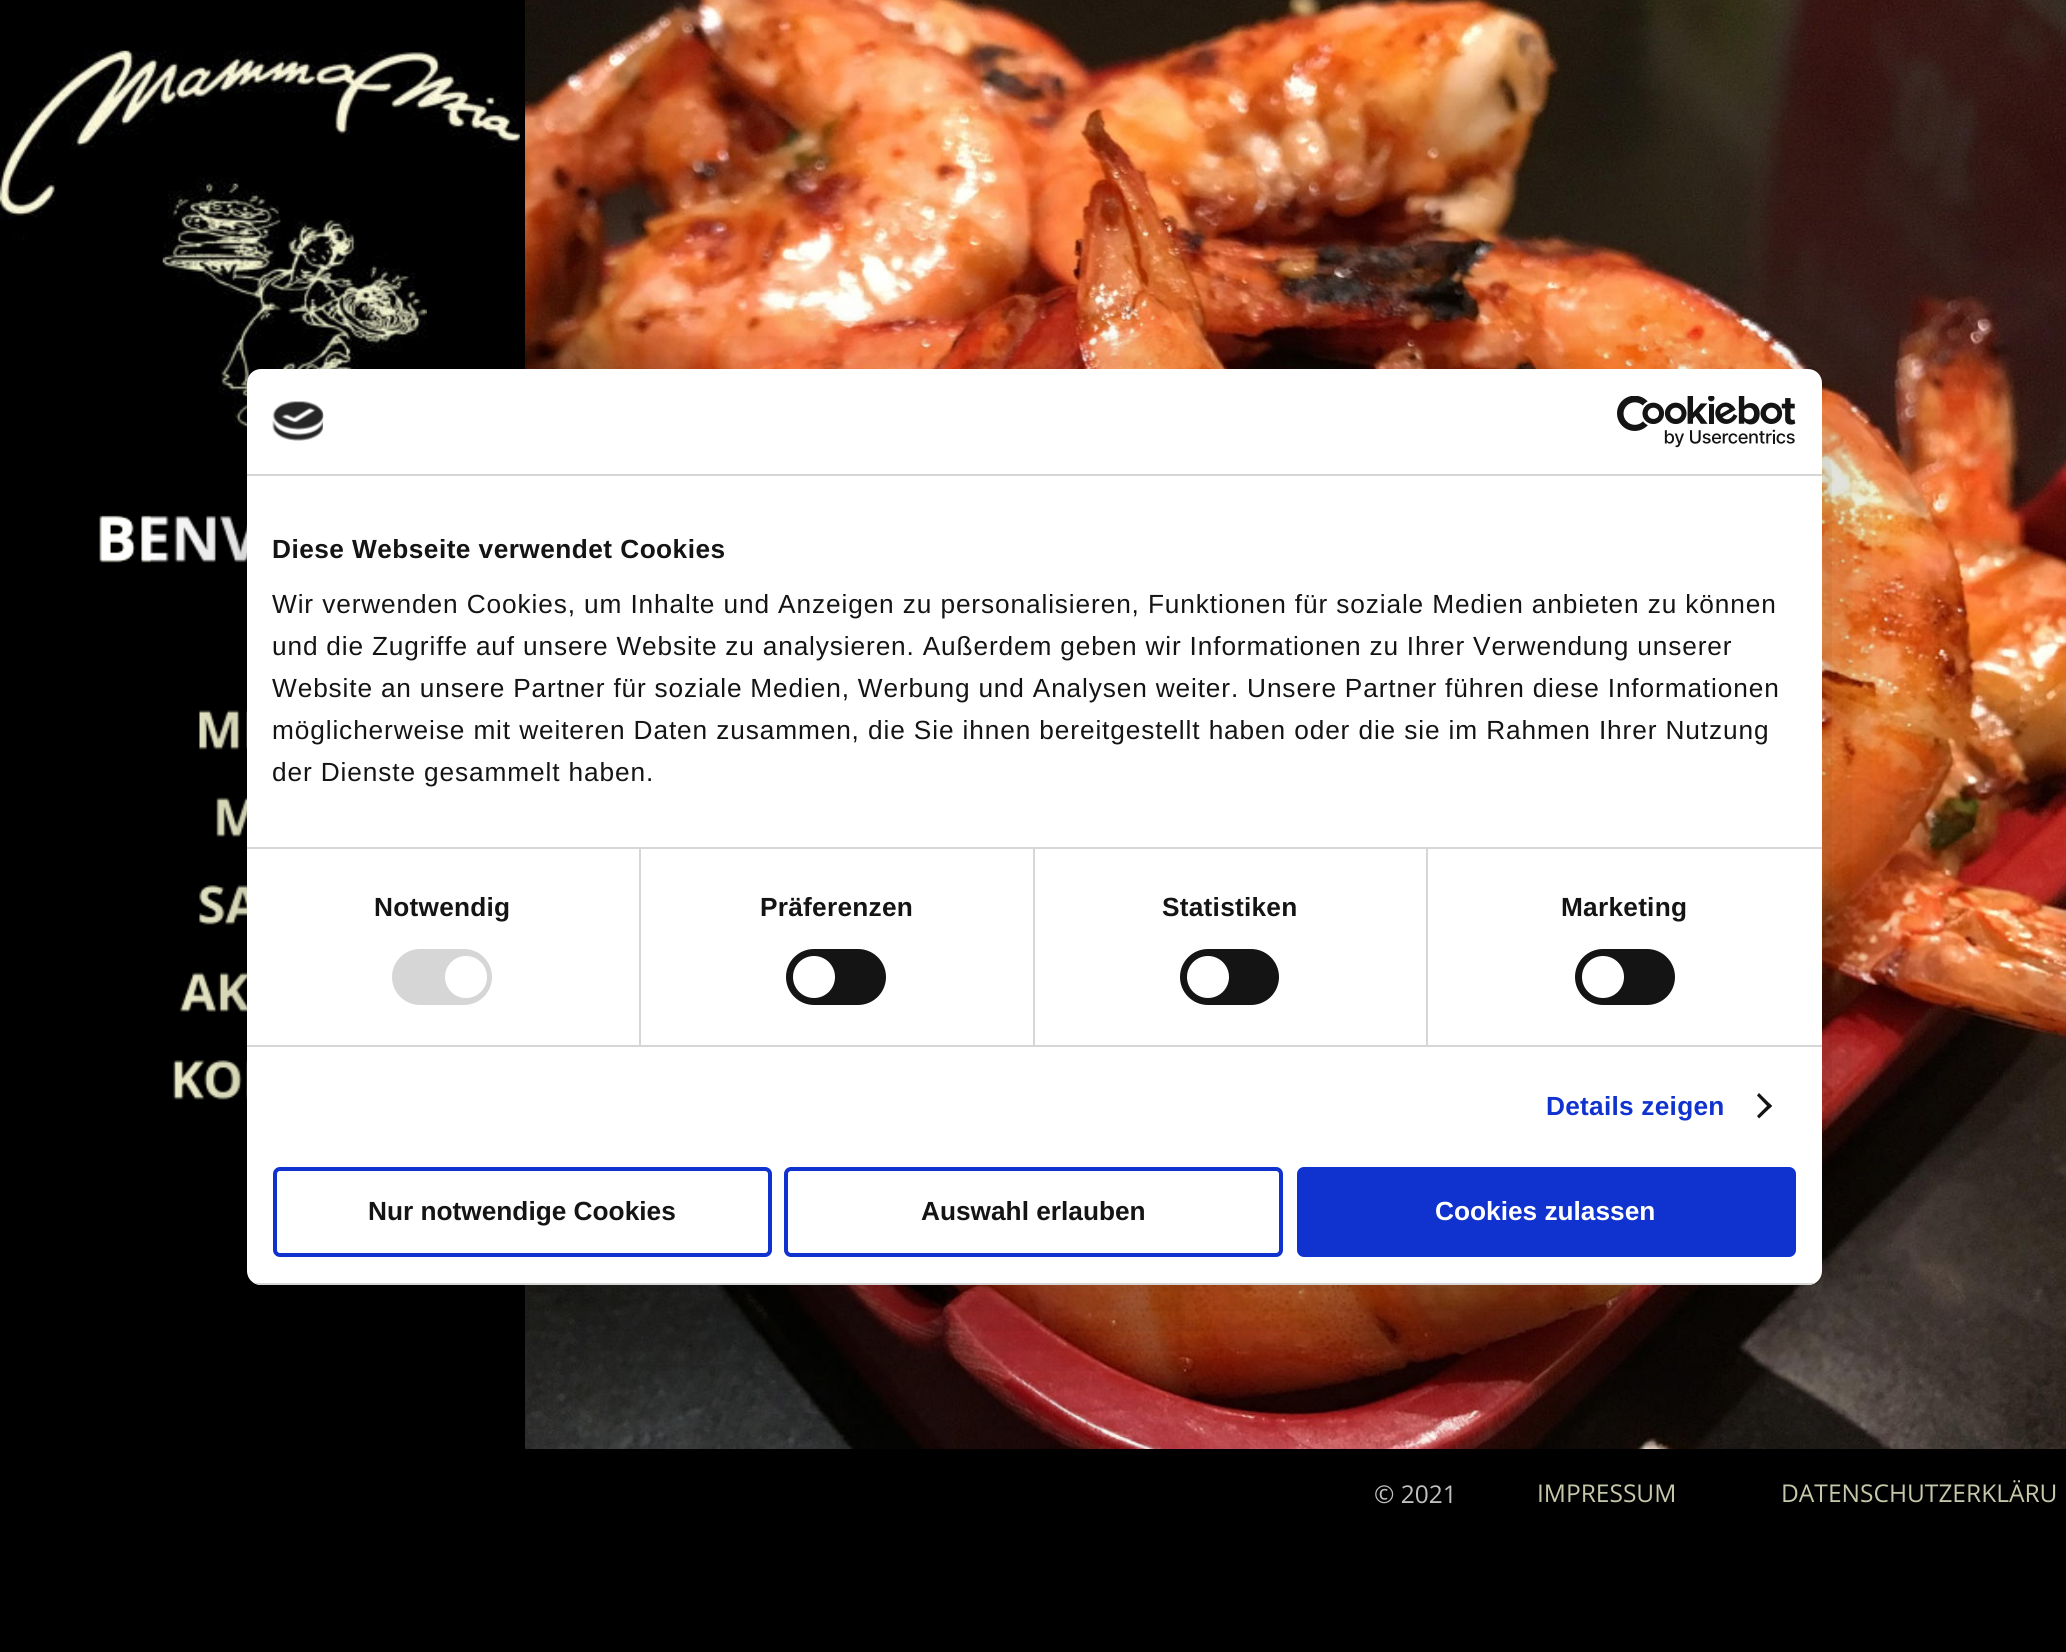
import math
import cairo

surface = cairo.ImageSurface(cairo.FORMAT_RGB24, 2066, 1652)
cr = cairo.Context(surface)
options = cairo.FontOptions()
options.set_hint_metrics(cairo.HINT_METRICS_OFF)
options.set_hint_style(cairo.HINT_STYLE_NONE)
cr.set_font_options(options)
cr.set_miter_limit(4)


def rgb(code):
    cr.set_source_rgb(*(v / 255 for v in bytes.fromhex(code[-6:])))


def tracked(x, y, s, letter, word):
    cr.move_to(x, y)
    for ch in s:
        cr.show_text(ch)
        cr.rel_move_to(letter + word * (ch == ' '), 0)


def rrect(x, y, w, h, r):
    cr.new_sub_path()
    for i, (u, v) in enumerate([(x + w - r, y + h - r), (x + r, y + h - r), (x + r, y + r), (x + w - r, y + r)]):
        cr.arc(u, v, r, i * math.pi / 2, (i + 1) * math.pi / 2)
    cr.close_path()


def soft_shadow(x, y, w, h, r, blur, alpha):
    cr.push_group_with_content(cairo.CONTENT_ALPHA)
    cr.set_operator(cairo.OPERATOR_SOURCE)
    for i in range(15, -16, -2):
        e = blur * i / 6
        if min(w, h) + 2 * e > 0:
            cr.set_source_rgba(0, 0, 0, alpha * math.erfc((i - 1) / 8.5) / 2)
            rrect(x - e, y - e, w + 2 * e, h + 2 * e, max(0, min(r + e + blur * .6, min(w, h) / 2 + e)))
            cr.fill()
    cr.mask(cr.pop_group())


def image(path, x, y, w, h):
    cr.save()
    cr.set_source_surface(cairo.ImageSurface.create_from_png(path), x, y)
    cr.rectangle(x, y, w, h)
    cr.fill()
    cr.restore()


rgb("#ffffff")
cr.paint()
image("img/3.png", 525, 0, 1541, 1449)
rgb("#000000")
cr.rectangle(0, 1449, 2066, 203)
cr.fill()
cr.rectangle(0, 0, 525, 1449)
cr.fill()
image("img/5.png", 162, 239, 265, 188)
image("img/6.png", 99, 515, 52, 48)
image("img/7.png", 99, 515, 148, 48)
image("img/8.png", 199, 710, 48, 40)
image("img/9.png", 216, 787, 31, 50)
image("img/10.png", 199, 885, 48, 40)
image("img/11.png", 179, 972, 68, 40)
image("img/12.png", 173, 1060, 74, 40)
rgb("#000000")
soft_shadow(247, 425, 1575, 916, 14, 59.5, 0.3)
rgb("#ffffff")
rrect(247, 369, 1575, 916, 14)
cr.fill()
rgb("#d6d6d6")
cr.rectangle(247, 474, 1575, 2)
cr.fill()
image("img/1.png", 272, 401, 52, 40)
image("img/2.png", 1617, 396, 179, 52)
for x, y, w, h, color in [
    (247, 847, 1575, 2, "#d6d6d6"),
    (247, 1045, 1575, 2, "#d6d6d6"),
    (639, 849, 2, 196, "#d6d6d6"),
]:
    rgb(color)
    cr.rectangle(x, y, w, h)
    cr.fill()
rrect(392, 949, 100, 56, 28)
cr.fill()
rgb("#ffffff")
cr.arc(466, 977, 21, 0, 2 * math.pi)
cr.fill()
rgb("#d6d6d6")
cr.rectangle(1033, 849, 2, 196)
cr.fill()
rgb("#141414")
rrect(786, 949, 100, 56, 28)
cr.fill()
rgb("#ffffff")
cr.arc(814, 977, 21, 0, 2 * math.pi)
cr.fill()
rgb("#d6d6d6")
cr.rectangle(1426, 849, 2, 196)
cr.fill()
rgb("#141414")
rrect(1180, 949, 99, 56, 28)
cr.fill()
rgb("#ffffff")
cr.arc(1208, 977, 21, 0, 2 * math.pi)
cr.fill()
rgb("#141414")
rrect(1575, 949, 100, 56, 28)
cr.fill()
rgb("#ffffff")
cr.arc(1603, 977, 21, 0, 2 * math.pi)
cr.fill()
rgb("#141414")
cr.new_path()
cr.move_to(1759, 1093)
cr.line_to(1772, 1106)
cr.line_to(1769.5, 1108.5)
cr.line_to(1757, 1095.5)
cr.close_path()
cr.fill()
cr.new_path()
cr.move_to(1769.5, 1103.5)
cr.line_to(1772, 1106)
cr.line_to(1759, 1118.5)
cr.line_to(1757, 1116)
cr.close_path()
cr.fill()
cr.save()
rrect(247, 369, 1575, 916, 14)
cr.clip()
rgb("#d6d6d6")
cr.rectangle(247, 1283, 1575, 2)
cr.fill()
cr.restore()
rrect(275, 1169, 495, 86, 5)
rgb("#1032cf")
cr.set_line_width(4)
cr.stroke()
rrect(786, 1169, 495, 86, 5)
cr.stroke()
rrect(1299, 1169, 495, 86, 5)
cr.fill_preserve()
cr.stroke()
image("img/4.png", 0, 50, 520, 190)
cr.select_font_face("Liberation Sans", cairo.FONT_SLANT_NORMAL, cairo.FONT_WEIGHT_BOLD)
cr.set_font_size(26.25)
rgb("#141414")
tracked(272, 558, "Diese Webseite verwendet Cookies", 0.45, 0)
cr.select_font_face("Liberation Sans")
tracked(272, 613, "Wir verwenden Cookies, um Inhalte und Anzeigen zu personalisieren, Funktionen für soziale Medien anbieten zu können", 0.88, 0)
tracked(272, 655, "und die Zugriffe auf unsere Website zu analysieren. Außerdem geben wir Informationen zu Ihrer Verwendung unserer", 0.88, -0.25)
tracked(272, 697, "Website an unsere Partner für soziale Medien, Werbung und Analysen weiter. Unsere Partner führen diese Informationen", 0.88, -0.25)
tracked(272, 739, "möglicherweise mit weiteren Daten zusammen, die Sie ihnen bereitgestellt haben oder die sie im Rahmen Ihrer Nutzung", 0.88, 0)
tracked(272, 781, "der Dienste gesammelt haben.", 0.88, 0)
cr.select_font_face("Liberation Sans", cairo.FONT_SLANT_NORMAL, cairo.FONT_WEIGHT_BOLD)
for x, y, s in [
    (374, 916, "Notwendig"),
    (760, 916, "Präferenzen"),
    (1162, 916, "Statistiken"),
    (1561, 916, "Marketing"),
]:
    tracked(x, y, s, 0.25, 0)
rgb("#1032cf")
tracked(1546, 1115, "Details zeigen", 0.25, 0)
rgb("#141414")
cr.move_to(368, 1220)
cr.show_text("Nur notwendige Cookies")
cr.move_to(921, 1220)
cr.show_text("Auswahl erlauben")
rgb("#ffffff")
cr.move_to(1435, 1220)
cr.show_text("Cookies zulassen")
cr.select_font_face("Open Sans")
cr.set_font_size(24.5)
rgb("#c0c0c0")
cr.move_to(1374, 1503)
cr.show_text("© 2021")
rgb("#c7c8aa")
cr.move_to(1537, 1502)
cr.show_text("IMPRESSUM")
cr.move_to(1781, 1502)
cr.show_text("DATENSCHUTZERKLÄRU")
surface.write_to_png("page.png")
